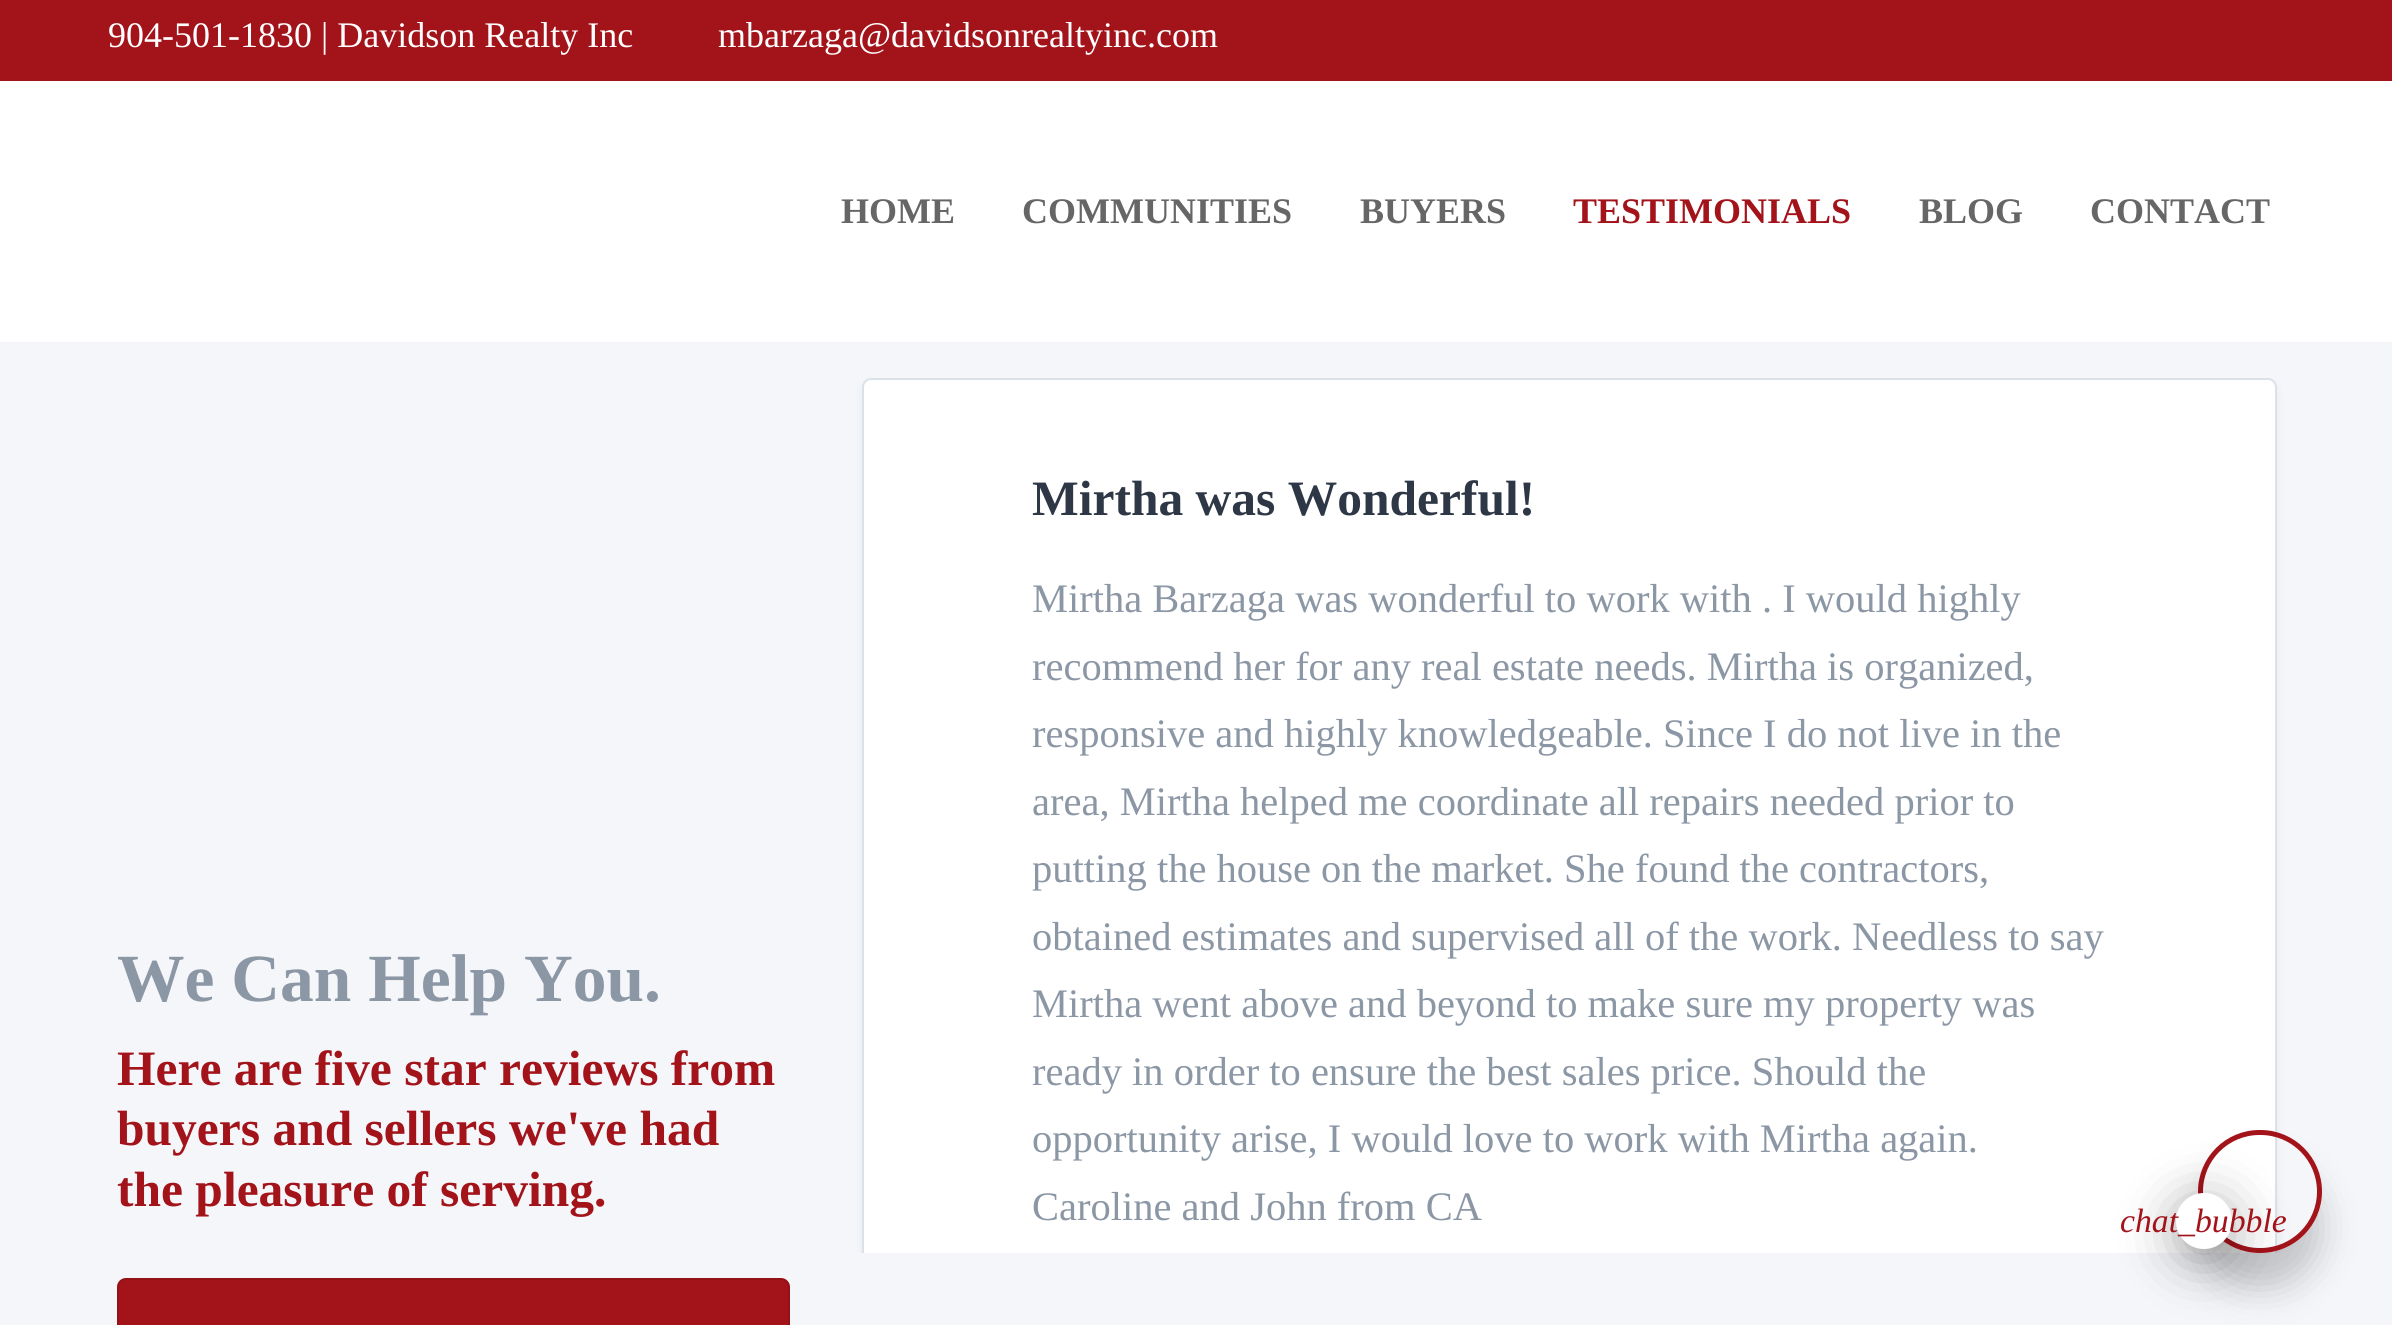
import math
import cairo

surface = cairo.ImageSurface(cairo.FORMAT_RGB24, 2392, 1325)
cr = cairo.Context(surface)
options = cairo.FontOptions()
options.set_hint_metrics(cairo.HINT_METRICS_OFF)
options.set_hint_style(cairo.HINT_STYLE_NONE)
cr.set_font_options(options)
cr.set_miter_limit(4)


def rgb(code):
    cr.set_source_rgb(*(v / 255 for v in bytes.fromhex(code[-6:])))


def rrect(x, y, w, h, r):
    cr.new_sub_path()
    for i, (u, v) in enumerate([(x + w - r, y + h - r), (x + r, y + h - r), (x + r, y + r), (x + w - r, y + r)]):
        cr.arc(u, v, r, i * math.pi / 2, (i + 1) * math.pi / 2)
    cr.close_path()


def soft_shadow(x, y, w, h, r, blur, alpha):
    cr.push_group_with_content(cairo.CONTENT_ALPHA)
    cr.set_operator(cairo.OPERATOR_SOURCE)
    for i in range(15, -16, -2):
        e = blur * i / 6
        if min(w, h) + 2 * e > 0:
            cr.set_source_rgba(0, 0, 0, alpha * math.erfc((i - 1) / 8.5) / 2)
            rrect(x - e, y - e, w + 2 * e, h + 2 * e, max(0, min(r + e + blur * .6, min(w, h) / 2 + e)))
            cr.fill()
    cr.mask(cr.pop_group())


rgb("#ffffff")
cr.paint()
rgb("#a3131a")
cr.rectangle(0, 0, 2392, 81)
cr.fill()
rgb("#f5f6fa")
cr.rectangle(0, 342, 2392, 983)
cr.fill()
rgb("#a3131a")
rrect(117, 1278, 673, 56, 9)
cr.fill()
rrect(118, 1279, 671, 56, 8)
cr.set_source_rgba(0, 0, 0, 0.1)
cr.stroke()
cr.save()
cr.rectangle(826, 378, 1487, 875)
cr.clip()
rgb("#000000")
soft_shadow(862, 383, 1415, 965, 9, 4.5, 0.06)
cr.restore()
rgb("#ffffff")
cr.new_path()
cr.move_to(871, 378)
cr.line_to(2268, 378)
cr.curve_to(2273, 378, 2277, 382, 2277, 387)
cr.line_to(2277, 1253)
cr.line_to(862, 1253)
cr.line_to(862, 387)
cr.curve_to(862, 382, 866, 378, 871, 378)
cr.close_path()
cr.fill()
cr.save()
cr.rectangle(826, 378, 1487, 875)
cr.clip()
rrect(863, 379, 1413, 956, 8)
rgb("#dae1e9")
cr.stroke()
cr.restore()
cr.save()
cr.set_fill_rule(cairo.FILL_RULE_EVEN_ODD)
cr.new_path()
cr.move_to(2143, 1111)
cr.line_to(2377, 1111)
cr.line_to(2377, 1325)
cr.line_to(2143, 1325)
cr.close_path()
cr.move_to(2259.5, 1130)
cr.line_to(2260.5, 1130)
cr.curve_to(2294.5, 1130, 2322, 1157.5, 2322, 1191.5)
cr.curve_to(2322, 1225.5, 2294.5, 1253, 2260.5, 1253)
cr.line_to(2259.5, 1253)
cr.curve_to(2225.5, 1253, 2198, 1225.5, 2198, 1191.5)
cr.curve_to(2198, 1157.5, 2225.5, 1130, 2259.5, 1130)
cr.close_path()
cr.clip()
rgb("#000000")
soft_shadow(2198, 1166, 124, 123, 61.5, 18, 0.2)
cr.restore()
rrect(2200.5, 1132.5, 119, 118, 59)
rgb("#a3131a")
cr.set_line_width(5)
cr.stroke()
rgb("#000000")
soft_shadow(2176, 1204, 56, 56, 28, 28, 0.3)
rgb("#ffffff")
cr.arc(2204, 1221, 28, 0, 2 * math.pi)
cr.fill()
cr.select_font_face("Liberation Serif")
cr.set_font_size(36)
cr.move_to(108, 47)
cr.show_text("904-501-1830 | Davidson Realty Inc")
cr.move_to(718, 47)
cr.show_text("mbarzaga@davidsonrealtyinc.com")
cr.select_font_face("Liberation Serif", cairo.FONT_SLANT_NORMAL, cairo.FONT_WEIGHT_BOLD)
rgb("#666666")
for x, y, s in [
    (841, 223, "HOME"),
    (1022, 223, "COMMUNITIES"),
    (1360, 223, "BUYERS"),
]:
    cr.move_to(x, y)
    cr.show_text(s)
rgb("#a3131a")
cr.move_to(1573, 223)
cr.show_text("TESTIMONIALS")
rgb("#666666")
cr.move_to(1919, 223)
cr.show_text("BLOG")
cr.move_to(2090, 223)
cr.show_text("CONTACT")
cr.set_font_size(67.5)
rgb("#8c97a5")
cr.move_to(117, 1001)
cr.show_text("We Can Help You.")
cr.set_font_size(49.5)
rgb("#a3131a")
for x, y, s in [
    (117, 1085, "Here are five star reviews from"),
    (117, 1145, "buyers and sellers we've had"),
    (117, 1206, "the pleasure of serving."),
]:
    cr.move_to(x, y)
    cr.show_text(s)
rgb("#2e3746")
cr.move_to(1032, 515)
cr.show_text("Mirtha was Wonderful!")
cr.select_font_face("Liberation Serif")
cr.set_font_size(40.5)
rgb("#8c97a5")
for x, y, s in [
    (1032, 612, "Mirtha Barzaga was wonderful to work with . I would highly"),
    (1032, 680, "recommend her for any real estate needs. Mirtha is organized,"),
    (1032, 747, "responsive and highly knowledgeable. Since I do not live in the"),
    (1032, 815, "area, Mirtha helped me coordinate all repairs needed prior to"),
    (1032, 882, "putting the house on the market. She found the contractors,"),
    (1032, 950, "obtained estimates and supervised all of the work. Needless to say"),
    (1032, 1017, "Mirtha went above and beyond to make sure my property was"),
    (1032, 1085, "ready in order to ensure the best sales price. Should the"),
    (1032, 1152, "opportunity arise, I would love to work with Mirtha again."),
    (1032, 1220, "Caroline and John from CA"),
]:
    cr.move_to(x, y)
    cr.show_text(s)
cr.select_font_face("Liberation Serif", cairo.FONT_SLANT_ITALIC)
cr.set_font_size(33.75)
rgb("#a3131a")
cr.move_to(2120, 1232)
cr.show_text("chat_bubble")
surface.write_to_png("page.png")
